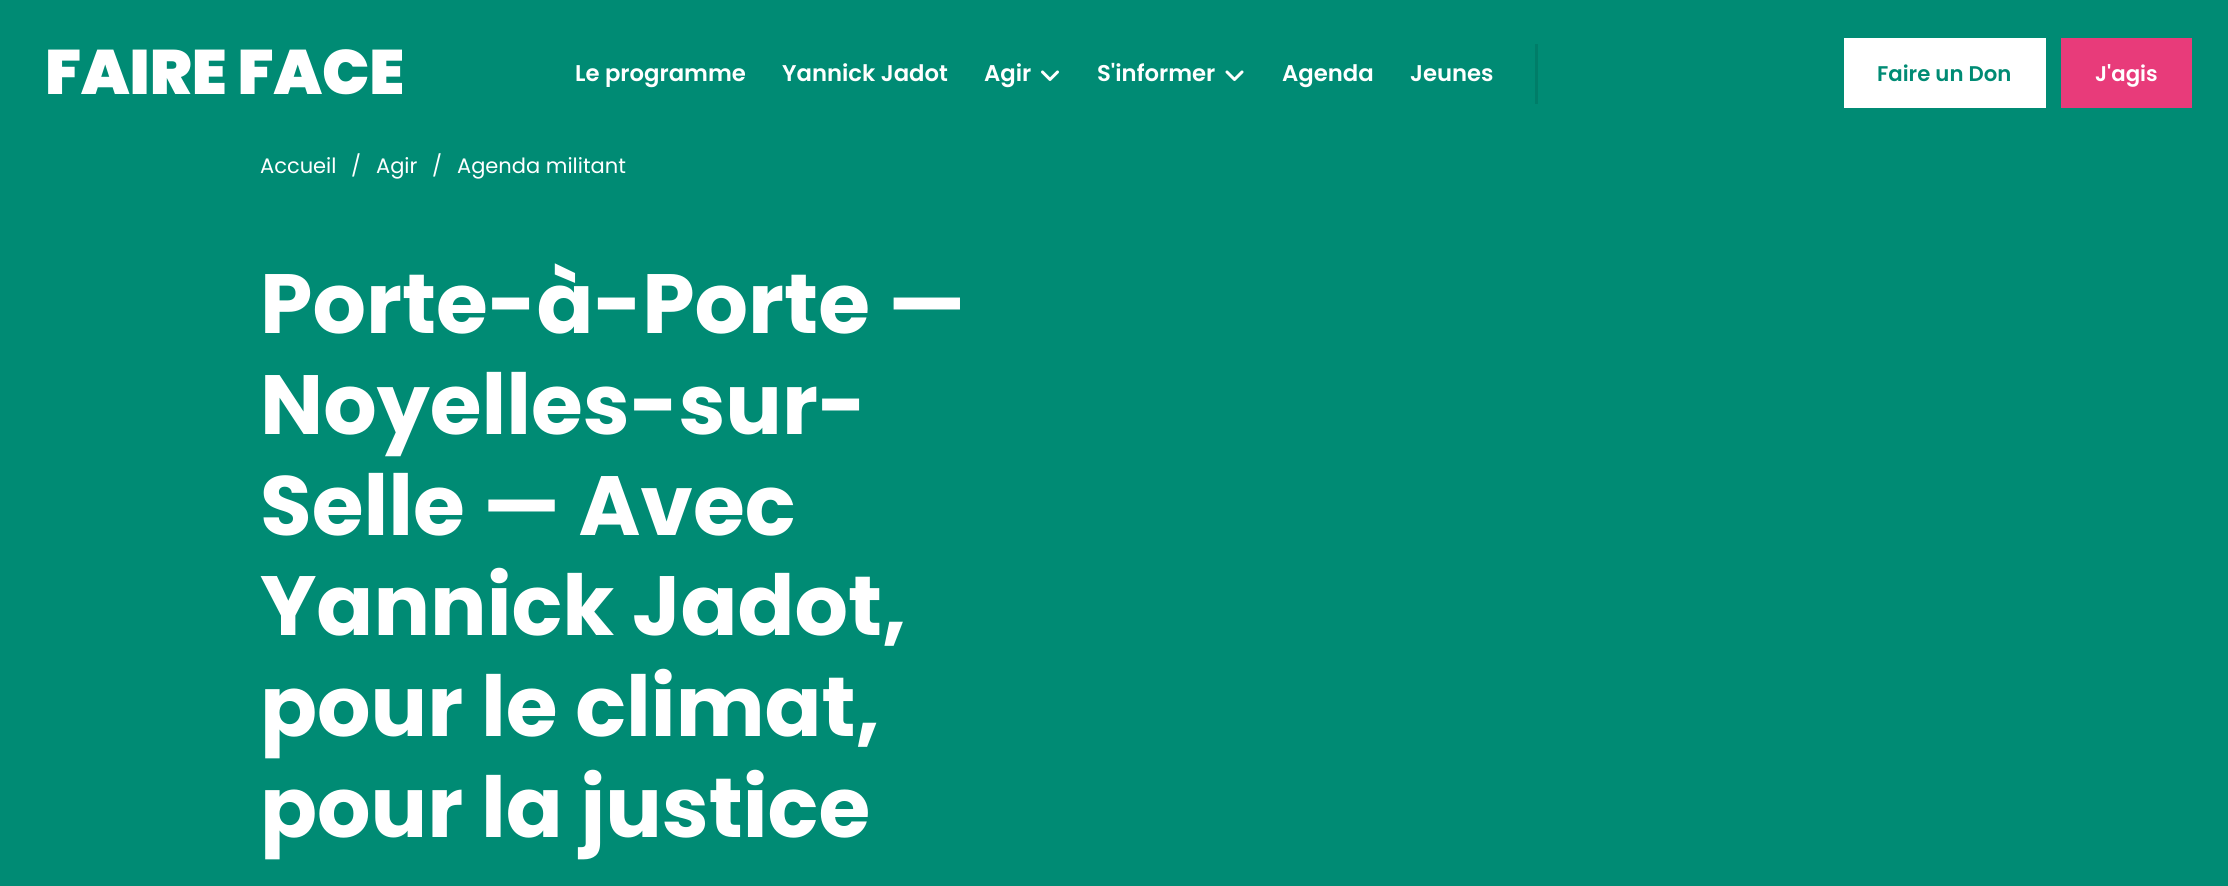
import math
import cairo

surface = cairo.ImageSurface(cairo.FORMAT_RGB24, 2228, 886)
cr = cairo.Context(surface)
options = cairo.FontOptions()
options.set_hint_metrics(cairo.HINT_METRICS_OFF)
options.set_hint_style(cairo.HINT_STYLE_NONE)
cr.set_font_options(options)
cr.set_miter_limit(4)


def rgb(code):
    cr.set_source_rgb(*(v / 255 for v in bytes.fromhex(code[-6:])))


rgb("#008b74")
cr.paint()
cr.new_path()
cr.move_to(1057.5, 72)
cr.line_to(1050, 79.5)
cr.line_to(1042.5, 72)
rgb("#ffffff")
cr.set_line_width(3)
cr.set_line_cap(cairo.LINE_CAP_ROUND)
cr.set_line_join(cairo.LINE_JOIN_ROUND)
cr.stroke()
cr.new_path()
cr.move_to(1242, 72)
cr.line_to(1234.5, 79.5)
cr.line_to(1227, 72)
cr.stroke()
for x, y, w, h, color in [
    (1535, 44, 3, 60, "#007d68"),
    (1844, 38, 202, 70, "#ffffff"),
    (2061, 38, 131, 70, "#e83b7a"),
]:
    rgb(color)
    cr.rectangle(x, y, w, h)
    cr.fill()
cr.select_font_face("Poppins Black")
cr.set_font_size(62.75)
rgb("#ffffff")
cr.move_to(45, 94)
cr.show_text("FAIRE FACE")
cr.select_font_face("Poppins SemiBold")
cr.set_font_size(22.75)
for x, y, s in [
    (575, 81, "Le programme"),
    (782, 81, "Yannick Jadot"),
    (984, 81, "Agir"),
    (1097, 81, "S'informer"),
    (1282, 81, "Agenda"),
    (1410, 81, "Jeunes"),
]:
    cr.move_to(x, y)
    cr.show_text(s)
cr.set_font_size(21.25)
rgb("#008b74")
cr.move_to(1877, 81)
cr.show_text("Faire un Don")
rgb("#ffffff")
cr.move_to(2095, 81)
cr.show_text("J'agis")
cr.select_font_face("Poppins")
cr.set_font_size(21)
for x, y, s in [
    (260, 173, "Accueil"),
    (351, 173, "/"),
    (376, 173, "Agir"),
    (432, 173, "/"),
    (457, 173, "Agenda militant"),
]:
    cr.move_to(x, y)
    cr.show_text(s)
cr.select_font_face("Poppins", cairo.FONT_SLANT_NORMAL, cairo.FONT_WEIGHT_BOLD)
cr.set_font_size(84)
for x, y, s in [
    (260, 333, "Porte-à-Porte —"),
    (260, 434, "Noyelles-sur-"),
    (260, 535, "Selle — Avec"),
    (260, 635, "Yannick Jadot,"),
    (260, 736, "pour le climat,"),
    (260, 837, "pour la justice"),
]:
    cr.move_to(x, y)
    cr.show_text(s)
surface.write_to_png("page.png")
